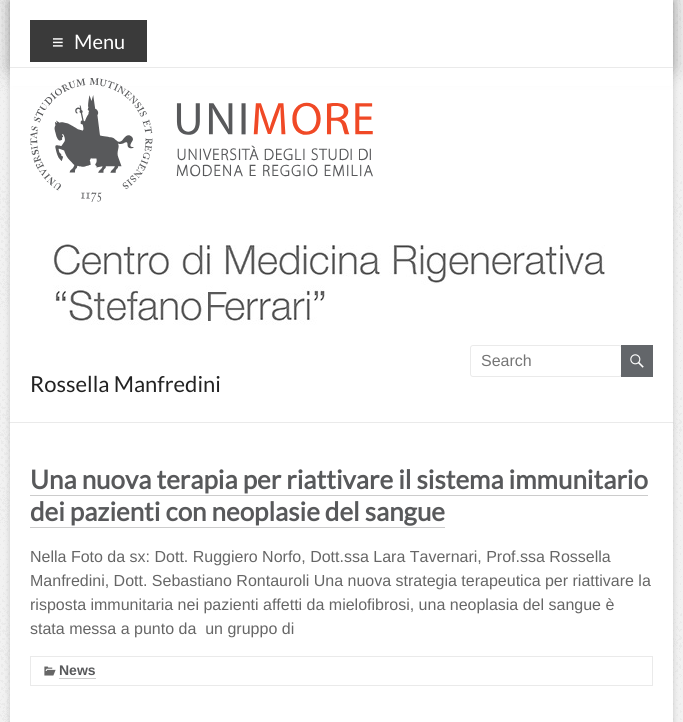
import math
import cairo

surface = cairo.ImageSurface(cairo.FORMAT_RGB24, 683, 722)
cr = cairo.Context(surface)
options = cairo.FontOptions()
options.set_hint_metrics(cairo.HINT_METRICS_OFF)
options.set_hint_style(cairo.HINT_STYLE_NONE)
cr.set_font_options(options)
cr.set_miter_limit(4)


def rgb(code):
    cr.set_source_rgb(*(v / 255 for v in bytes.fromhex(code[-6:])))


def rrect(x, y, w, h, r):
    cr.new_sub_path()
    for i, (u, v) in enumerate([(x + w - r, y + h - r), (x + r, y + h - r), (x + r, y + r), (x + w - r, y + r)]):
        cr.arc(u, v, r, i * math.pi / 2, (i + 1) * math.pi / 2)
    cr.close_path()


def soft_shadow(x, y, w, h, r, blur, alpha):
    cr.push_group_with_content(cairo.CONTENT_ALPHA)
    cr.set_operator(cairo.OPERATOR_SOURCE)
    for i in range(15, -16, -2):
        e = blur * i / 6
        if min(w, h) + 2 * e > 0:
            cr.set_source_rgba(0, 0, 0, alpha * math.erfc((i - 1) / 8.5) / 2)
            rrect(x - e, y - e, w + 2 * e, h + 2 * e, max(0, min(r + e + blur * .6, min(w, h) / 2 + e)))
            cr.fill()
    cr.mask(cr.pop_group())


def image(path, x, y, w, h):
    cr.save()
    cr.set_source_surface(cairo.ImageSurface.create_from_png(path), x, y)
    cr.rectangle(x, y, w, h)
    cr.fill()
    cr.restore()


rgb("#ffffff")
cr.paint()
image("img/1.png", 0, 0, 683, 722)
rgb("#646464")
soft_shadow(10, 2, 663, 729, 0, 3, 0.3)
rgb("#ffffff")
cr.rectangle(10, 0, 663, 722)
cr.fill()
cr.save()
cr.set_fill_rule(cairo.FILL_RULE_EVEN_ODD)
cr.new_path()
cr.move_to(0, 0)
cr.line_to(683, 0)
cr.line_to(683, 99)
cr.line_to(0, 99)
cr.close_path()
cr.move_to(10, 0)
cr.line_to(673, 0)
cr.line_to(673, 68)
cr.line_to(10, 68)
cr.close_path()
cr.clip()
rgb("#000000")
soft_shadow(10, 0, 663, 68, 0, 10, 0.3)
cr.restore()
for x, y, w, h, color in [
    (10, 67, 663, 1, "#eaeaea"),
    (30, 20, 117, 42, "#3a3a3a"),
    (10, 68, 663, 18, "#ffffff"),
]:
    rgb(color)
    cr.rectangle(x, y, w, h)
    cr.fill()
image("img/2.png", 30, 78, 343, 124)
image("img/3.png", 53, 244, 552, 81)
rrect(470.5, 345.5, 151, 31, 2.5)
rgb("#eaeaea")
cr.set_line_width(1)
cr.stroke()
rgb("#63666a")
cr.rectangle(621, 345, 32, 32)
cr.fill()
image("img/4.png", 630, 354, 14, 14)
for x, y, w, h, color in [
    (10, 422, 663, 1, "#eaeaea"),
    (30, 495, 618, 1, "#cccccc"),
    (30, 527, 415, 1, "#cccccc"),
]:
    rgb(color)
    cr.rectangle(x, y, w, h)
    cr.fill()
cr.rectangle(30.5, 656.5, 622, 29)
rgb("#eaeaea")
cr.stroke()
image("img/5.png", 44, 666, 12, 10)
rgb("#cccccc")
cr.rectangle(59, 678, 37, 1)
cr.fill()
cr.select_font_face("Liberation Sans")
cr.set_font_size(20)
rgb("#ffffff")
cr.move_to(52, 49)
cr.show_text("≡")
cr.select_font_face("Lato")
cr.move_to(74, 49)
cr.show_text("Menu")
cr.select_font_face("Liberation Sans")
cr.set_font_size(16)
rgb("#757575")
cr.move_to(481, 366)
cr.show_text("Search")
cr.select_font_face("Lato")
cr.set_font_size(22)
rgb("#222222")
cr.move_to(30, 392)
cr.show_text("Rossella Manfredini")
cr.select_font_face("Lato", cairo.FONT_SLANT_NORMAL, cairo.FONT_WEIGHT_BOLD)
cr.set_font_size(26)
rgb("#58595b")
cr.move_to(30, 489)
cr.show_text("Una nuova terapia per riattivare il sistema immunitario")
cr.move_to(30, 521)
cr.show_text("dei pazienti con neoplasie del sangue")
cr.select_font_face("Liberation Sans")
cr.set_font_size(16)
rgb("#666666")
for x, y, s in [
    (30, 562, "Nella Foto da sx: Dott. Ruggiero Norfo, Dott.ssa Lara Tavernari, Prof.ssa Rossella"),
    (30, 586, "Manfredini, Dott. Sebastiano Rontauroli Una nuova strategia terapeutica per riattivare la"),
    (30, 610, "risposta immunitaria nei pazienti affetti da mielofibrosi, una neoplasia del sangue è"),
    (30, 634, "stata messa a punto da  un gruppo di"),
]:
    cr.move_to(x, y)
    cr.show_text(s)
cr.select_font_face("Liberation Sans", cairo.FONT_SLANT_NORMAL, cairo.FONT_WEIGHT_BOLD)
cr.set_font_size(14)
rgb("#58595b")
cr.move_to(59, 675)
cr.show_text("News")
surface.write_to_png("page.png")
